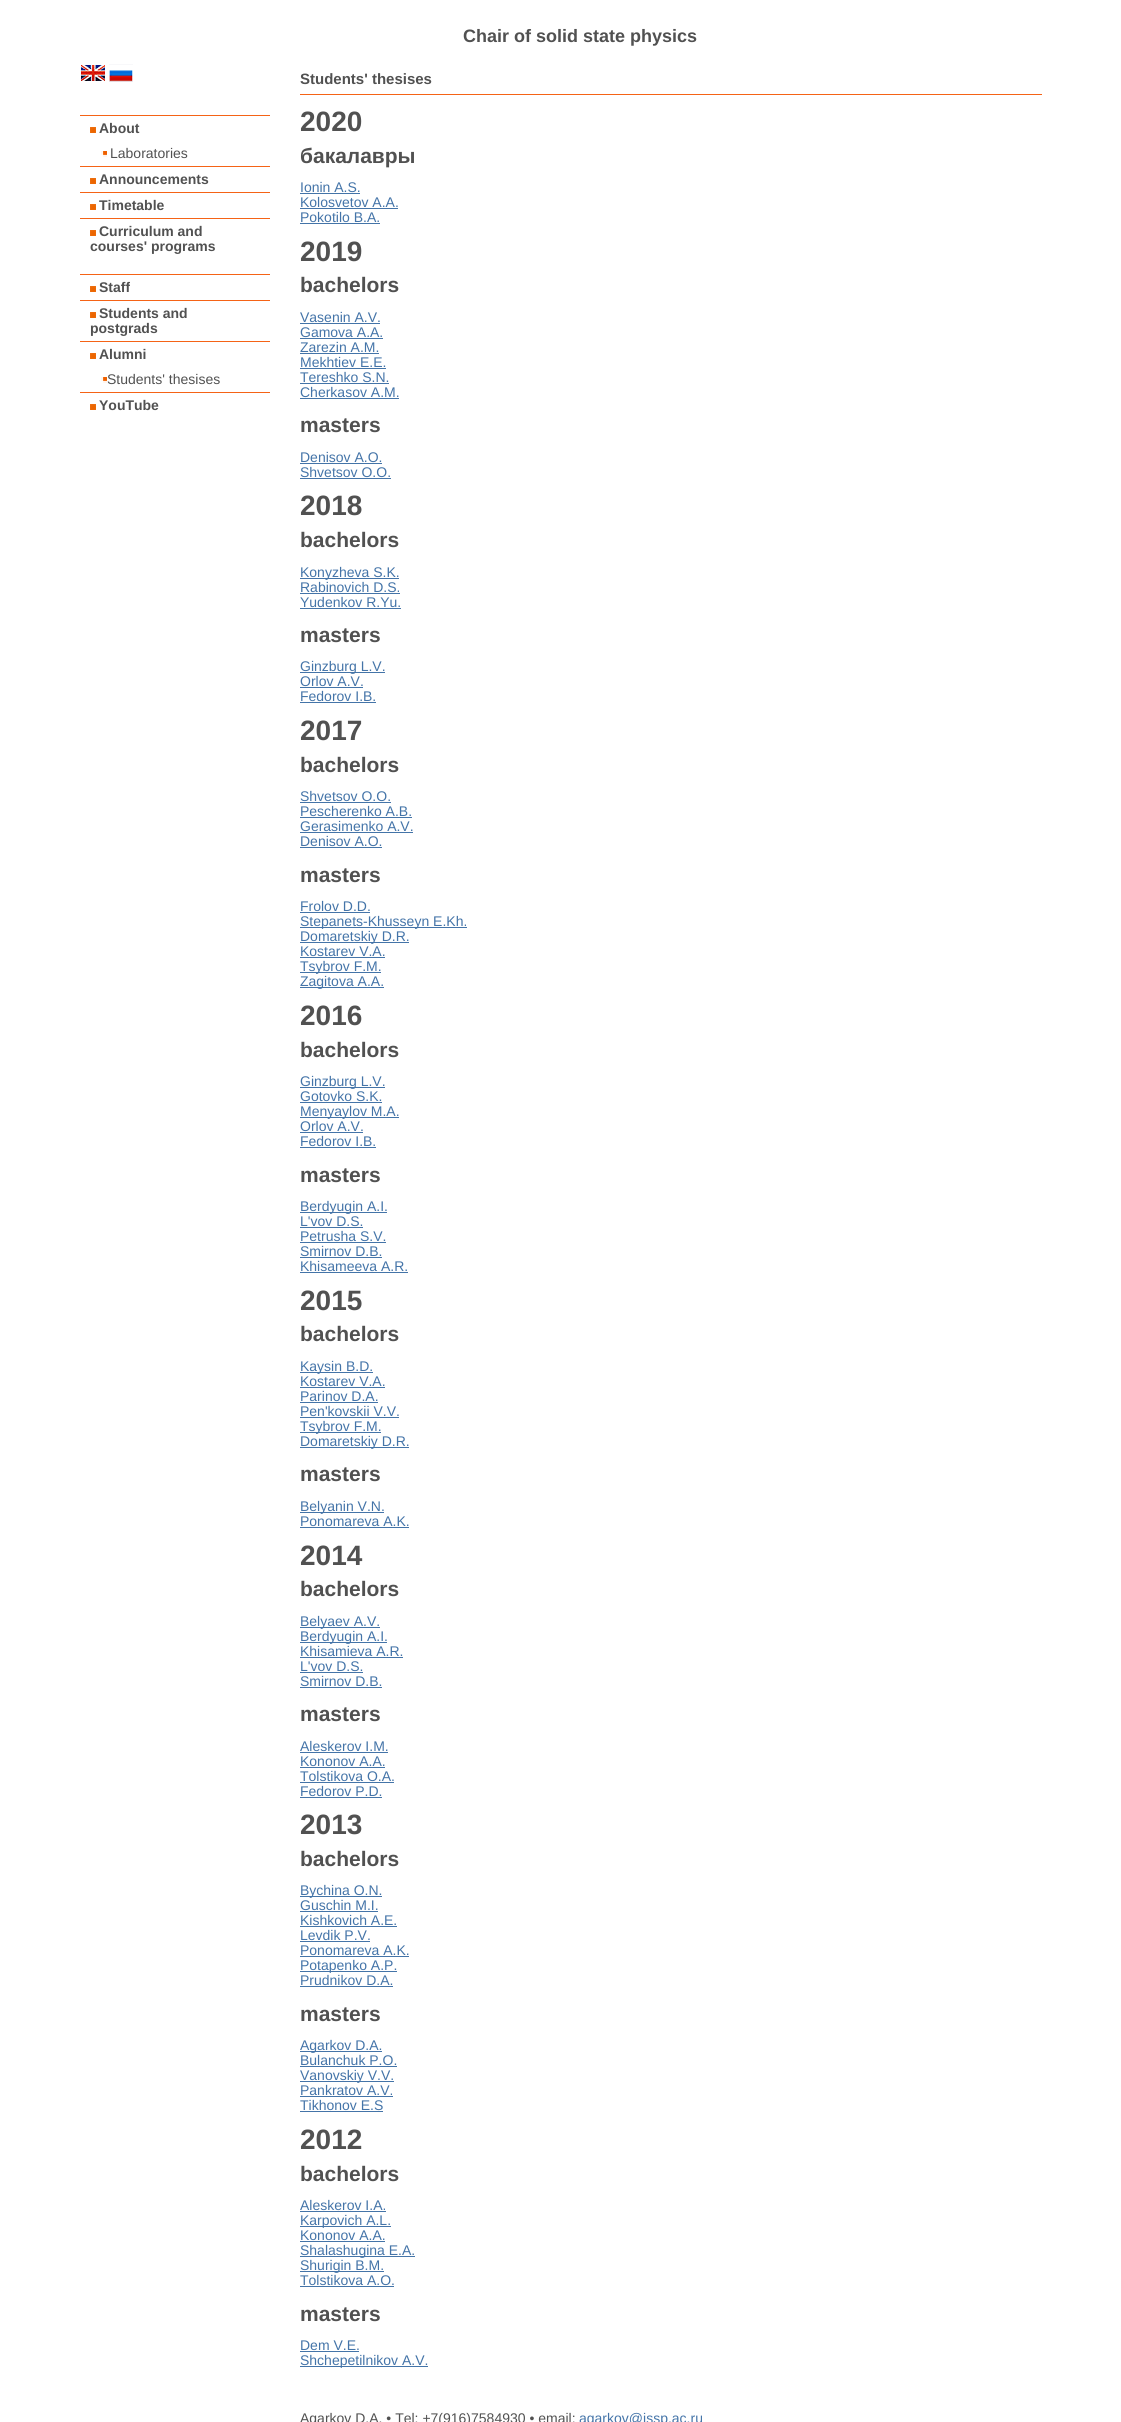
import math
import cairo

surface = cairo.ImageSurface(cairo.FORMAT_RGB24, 1121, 2422)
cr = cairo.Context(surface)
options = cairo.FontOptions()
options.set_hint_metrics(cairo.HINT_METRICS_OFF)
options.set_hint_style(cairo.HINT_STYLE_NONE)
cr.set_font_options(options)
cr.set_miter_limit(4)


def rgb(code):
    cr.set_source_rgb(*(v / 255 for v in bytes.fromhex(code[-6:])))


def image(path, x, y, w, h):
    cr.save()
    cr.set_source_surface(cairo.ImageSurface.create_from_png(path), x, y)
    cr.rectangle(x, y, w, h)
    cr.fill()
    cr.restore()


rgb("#ffffff")
cr.paint()
image("img/1.png", 81, 65, 24, 16)
image("img/2.png", 109, 64, 24, 18)
rgb("#f56316")
cr.rectangle(80, 115, 190, 1)
cr.fill()
image("img/3.png", 90, 127, 6, 6)
image("img/4.png", 101, 151, 6, 6)
cr.rectangle(80, 166, 190, 1)
cr.fill()
image("img/3.png", 90, 178, 6, 6)
cr.rectangle(80, 192, 190, 1)
cr.fill()
image("img/3.png", 90, 204, 6, 6)
cr.rectangle(80, 218, 190, 1)
cr.fill()
image("img/3.png", 90, 230, 6, 6)
cr.rectangle(80, 274, 190, 1)
cr.fill()
image("img/3.png", 90, 286, 6, 6)
cr.rectangle(80, 300, 190, 1)
cr.fill()
image("img/3.png", 90, 312, 6, 6)
cr.rectangle(80, 341, 190, 1)
cr.fill()
image("img/3.png", 90, 353, 6, 6)
image("img/4.png", 101, 377, 6, 6)
cr.rectangle(80, 392, 190, 1)
cr.fill()
image("img/3.png", 90, 404, 6, 6)
for x, y, w, h, color in [
    (300, 94, 742, 1, "#f56316"),
    (300, 193, 60, 1, "#4474a8"),
    (300, 208, 98, 1, "#4474a8"),
    (300, 223, 80, 1, "#4474a8"),
    (300, 323, 80, 1, "#4474a8"),
    (300, 338, 83, 1, "#4474a8"),
    (300, 353, 79, 1, "#4474a8"),
    (300, 368, 86, 1, "#4474a8"),
    (300, 383, 89, 1, "#4474a8"),
    (300, 398, 99, 1, "#4474a8"),
    (300, 463, 82, 1, "#4474a8"),
    (300, 478, 91, 1, "#4474a8"),
    (300, 578, 99, 1, "#4474a8"),
    (300, 593, 100, 1, "#4474a8"),
    (300, 608, 101, 1, "#4474a8"),
    (300, 672, 85, 1, "#4474a8"),
    (300, 687, 63, 1, "#4474a8"),
    (300, 702, 76, 1, "#4474a8"),
    (300, 802, 91, 1, "#4474a8"),
    (300, 817, 112, 1, "#4474a8"),
    (300, 832, 113, 1, "#4474a8"),
    (300, 847, 82, 1, "#4474a8"),
    (300, 912, 70, 1, "#4474a8"),
    (300, 927, 167, 1, "#4474a8"),
    (300, 942, 109, 1, "#4474a8"),
    (300, 957, 85, 1, "#4474a8"),
    (300, 972, 81, 1, "#4474a8"),
    (300, 987, 84, 1, "#4474a8"),
    (300, 1087, 85, 1, "#4474a8"),
    (300, 1102, 82, 1, "#4474a8"),
    (300, 1117, 99, 1, "#4474a8"),
    (300, 1132, 63, 1, "#4474a8"),
    (300, 1147, 76, 1, "#4474a8"),
    (300, 1212, 87, 1, "#4474a8"),
    (300, 1227, 63, 1, "#4474a8"),
    (300, 1242, 86, 1, "#4474a8"),
    (300, 1257, 82, 1, "#4474a8"),
    (300, 1272, 108, 1, "#4474a8"),
    (300, 1372, 73, 1, "#4474a8"),
    (300, 1387, 85, 1, "#4474a8"),
    (300, 1402, 78, 1, "#4474a8"),
    (300, 1417, 99, 1, "#4474a8"),
    (300, 1432, 81, 1, "#4474a8"),
    (300, 1447, 109, 1, "#4474a8"),
    (300, 1512, 84, 1, "#4474a8"),
    (300, 1527, 109, 1, "#4474a8"),
    (300, 1627, 80, 1, "#4474a8"),
    (300, 1642, 87, 1, "#4474a8"),
    (300, 1657, 103, 1, "#4474a8"),
    (300, 1672, 63, 1, "#4474a8"),
    (300, 1687, 82, 1, "#4474a8"),
    (300, 1752, 88, 1, "#4474a8"),
    (300, 1767, 85, 1, "#4474a8"),
    (300, 1782, 94, 1, "#4474a8"),
    (300, 1797, 82, 1, "#4474a8"),
    (300, 1896, 82, 1, "#4474a8"),
    (300, 1911, 78, 1, "#4474a8"),
    (300, 1926, 97, 1, "#4474a8"),
    (300, 1941, 70, 1, "#4474a8"),
    (300, 1956, 109, 1, "#4474a8"),
    (300, 1971, 97, 1, "#4474a8"),
    (300, 1986, 93, 1, "#4474a8"),
    (300, 2051, 82, 1, "#4474a8"),
    (300, 2066, 97, 1, "#4474a8"),
    (300, 2081, 94, 1, "#4474a8"),
    (300, 2096, 93, 1, "#4474a8"),
    (300, 2111, 83, 1, "#4474a8"),
    (300, 2211, 86, 1, "#4474a8"),
    (300, 2226, 91, 1, "#4474a8"),
    (300, 2241, 85, 1, "#4474a8"),
    (300, 2256, 115, 1, "#4474a8"),
    (300, 2271, 84, 1, "#4474a8"),
    (300, 2286, 94, 1, "#4474a8"),
    (300, 2351, 59, 1, "#4474a8"),
    (300, 2366, 128, 1, "#4474a8"),
]:
    rgb(color)
    cr.rectangle(x, y, w, h)
    cr.fill()
cr.select_font_face("Liberation Sans", cairo.FONT_SLANT_NORMAL, cairo.FONT_WEIGHT_BOLD)
cr.set_font_size(18)
rgb("#515151")
cr.move_to(463, 42)
cr.show_text("Chair of solid state physics")
cr.set_font_size(14)
cr.move_to(99, 133)
cr.show_text("About")
cr.select_font_face("Liberation Sans")
cr.move_to(110, 158)
cr.show_text("Laboratories")
cr.select_font_face("Liberation Sans", cairo.FONT_SLANT_NORMAL, cairo.FONT_WEIGHT_BOLD)
for x, y, s in [
    (99, 184, "Announcements"),
    (99, 210, "Timetable"),
    (99, 236, "Curriculum and"),
    (90, 251, "courses' programs"),
    (99, 292, "Staff"),
    (99, 318, "Students and"),
    (90, 333, "postgrads"),
    (99, 359, "Alumni"),
]:
    cr.move_to(x, y)
    cr.show_text(s)
cr.select_font_face("Liberation Sans")
cr.move_to(107, 384)
cr.show_text("Students' thesises")
cr.select_font_face("Liberation Sans", cairo.FONT_SLANT_NORMAL, cairo.FONT_WEIGHT_BOLD)
cr.move_to(99, 410)
cr.show_text("YouTube")
cr.set_font_size(15)
cr.move_to(300, 84)
cr.show_text("Students' thesises")
cr.set_font_size(28)
cr.move_to(300, 131)
cr.show_text("2020")
cr.set_font_size(21)
cr.move_to(300, 163)
cr.show_text("бакалавры")
cr.select_font_face("Liberation Sans")
cr.set_font_size(14)
rgb("#4474a8")
for x, y, s in [
    (300, 192, "Ionin A.S."),
    (300, 207, "Kolosvetov A.A."),
    (300, 222, "Pokotilo B.A."),
]:
    cr.move_to(x, y)
    cr.show_text(s)
cr.select_font_face("Liberation Sans", cairo.FONT_SLANT_NORMAL, cairo.FONT_WEIGHT_BOLD)
cr.set_font_size(28)
rgb("#515151")
cr.move_to(300, 261)
cr.show_text("2019")
cr.set_font_size(21)
cr.move_to(300, 292)
cr.show_text("bachelors")
cr.select_font_face("Liberation Sans")
cr.set_font_size(14)
rgb("#4474a8")
for x, y, s in [
    (300, 322, "Vasenin A.V."),
    (300, 337, "Gamova А.А."),
    (300, 352, "Zarezin А.М."),
    (300, 367, "Mekhtiev E.E."),
    (300, 382, "Tereshko S.N."),
    (300, 397, "Cherkasov А.М."),
]:
    cr.move_to(x, y)
    cr.show_text(s)
cr.select_font_face("Liberation Sans", cairo.FONT_SLANT_NORMAL, cairo.FONT_WEIGHT_BOLD)
cr.set_font_size(21)
rgb("#515151")
cr.move_to(300, 432)
cr.show_text("masters")
cr.select_font_face("Liberation Sans")
cr.set_font_size(14)
rgb("#4474a8")
cr.move_to(300, 462)
cr.show_text("Denisov А.О.")
cr.move_to(300, 477)
cr.show_text("Shvetsov О.О.")
cr.select_font_face("Liberation Sans", cairo.FONT_SLANT_NORMAL, cairo.FONT_WEIGHT_BOLD)
cr.set_font_size(28)
rgb("#515151")
cr.move_to(300, 515)
cr.show_text("2018")
cr.set_font_size(21)
cr.move_to(300, 547)
cr.show_text("bachelors")
cr.select_font_face("Liberation Sans")
cr.set_font_size(14)
rgb("#4474a8")
for x, y, s in [
    (300, 577, "Konyzheva S.K."),
    (300, 592, "Rabinovich D.S."),
    (300, 607, "Yudenkov R.Yu."),
]:
    cr.move_to(x, y)
    cr.show_text(s)
cr.select_font_face("Liberation Sans", cairo.FONT_SLANT_NORMAL, cairo.FONT_WEIGHT_BOLD)
cr.set_font_size(21)
rgb("#515151")
cr.move_to(300, 642)
cr.show_text("masters")
cr.select_font_face("Liberation Sans")
cr.set_font_size(14)
rgb("#4474a8")
for x, y, s in [
    (300, 671, "Ginzburg L.V."),
    (300, 686, "Orlov A.V."),
    (300, 701, "Fedorov I.B."),
]:
    cr.move_to(x, y)
    cr.show_text(s)
cr.select_font_face("Liberation Sans", cairo.FONT_SLANT_NORMAL, cairo.FONT_WEIGHT_BOLD)
cr.set_font_size(28)
rgb("#515151")
cr.move_to(300, 740)
cr.show_text("2017")
cr.set_font_size(21)
cr.move_to(300, 772)
cr.show_text("bachelors")
cr.select_font_face("Liberation Sans")
cr.set_font_size(14)
rgb("#4474a8")
for x, y, s in [
    (300, 801, "Shvetsov O.O."),
    (300, 816, "Pescherenko A.B."),
    (300, 831, "Gerasimenko A.V."),
    (300, 846, "Denisov A.O."),
]:
    cr.move_to(x, y)
    cr.show_text(s)
cr.select_font_face("Liberation Sans", cairo.FONT_SLANT_NORMAL, cairo.FONT_WEIGHT_BOLD)
cr.set_font_size(21)
rgb("#515151")
cr.move_to(300, 882)
cr.show_text("masters")
cr.select_font_face("Liberation Sans")
cr.set_font_size(14)
rgb("#4474a8")
for x, y, s in [
    (300, 911, "Frolov D.D."),
    (300, 926, "Stepanets-Khusseyn E.Kh."),
    (300, 941, "Domaretskiy D.R."),
    (300, 956, "Kostarev V.A."),
    (300, 971, "Tsybrov F.M."),
    (300, 986, "Zagitova A.A."),
]:
    cr.move_to(x, y)
    cr.show_text(s)
cr.select_font_face("Liberation Sans", cairo.FONT_SLANT_NORMAL, cairo.FONT_WEIGHT_BOLD)
cr.set_font_size(28)
rgb("#515151")
cr.move_to(300, 1025)
cr.show_text("2016")
cr.set_font_size(21)
cr.move_to(300, 1057)
cr.show_text("bachelors")
cr.select_font_face("Liberation Sans")
cr.set_font_size(14)
rgb("#4474a8")
for x, y, s in [
    (300, 1086, "Ginzburg L.V."),
    (300, 1101, "Gotovko S.K."),
    (300, 1116, "Menyaylov M.A."),
    (300, 1131, "Orlov A.V."),
    (300, 1146, "Fedorov I.B."),
]:
    cr.move_to(x, y)
    cr.show_text(s)
cr.select_font_face("Liberation Sans", cairo.FONT_SLANT_NORMAL, cairo.FONT_WEIGHT_BOLD)
cr.set_font_size(21)
rgb("#515151")
cr.move_to(300, 1182)
cr.show_text("masters")
cr.select_font_face("Liberation Sans")
cr.set_font_size(14)
rgb("#4474a8")
for x, y, s in [
    (300, 1211, "Berdyugin A.I."),
    (300, 1226, "L'vov D.S."),
    (300, 1241, "Petrusha S.V."),
    (300, 1256, "Smirnov D.B."),
    (300, 1271, "Khisameeva A.R."),
]:
    cr.move_to(x, y)
    cr.show_text(s)
cr.select_font_face("Liberation Sans", cairo.FONT_SLANT_NORMAL, cairo.FONT_WEIGHT_BOLD)
cr.set_font_size(28)
rgb("#515151")
cr.move_to(300, 1310)
cr.show_text("2015")
cr.set_font_size(21)
cr.move_to(300, 1341)
cr.show_text("bachelors")
cr.select_font_face("Liberation Sans")
cr.set_font_size(14)
rgb("#4474a8")
for x, y, s in [
    (300, 1371, "Kaysin B.D."),
    (300, 1386, "Kostarev V.A."),
    (300, 1401, "Parinov D.A."),
    (300, 1416, "Pen'kovskii V.V."),
    (300, 1431, "Tsybrov F.M."),
    (300, 1446, "Domaretskiy D.R."),
]:
    cr.move_to(x, y)
    cr.show_text(s)
cr.select_font_face("Liberation Sans", cairo.FONT_SLANT_NORMAL, cairo.FONT_WEIGHT_BOLD)
cr.set_font_size(21)
rgb("#515151")
cr.move_to(300, 1481)
cr.show_text("masters")
cr.select_font_face("Liberation Sans")
cr.set_font_size(14)
rgb("#4474a8")
cr.move_to(300, 1511)
cr.show_text("Belyanin V.N.")
cr.move_to(300, 1526)
cr.show_text("Ponomareva A.K.")
cr.select_font_face("Liberation Sans", cairo.FONT_SLANT_NORMAL, cairo.FONT_WEIGHT_BOLD)
cr.set_font_size(28)
rgb("#515151")
cr.move_to(300, 1565)
cr.show_text("2014")
cr.set_font_size(21)
cr.move_to(300, 1596)
cr.show_text("bachelors")
cr.select_font_face("Liberation Sans")
cr.set_font_size(14)
rgb("#4474a8")
for x, y, s in [
    (300, 1626, "Belyaev A.V."),
    (300, 1641, "Berdyugin A.I."),
    (300, 1656, "Khisamieva A.R."),
    (300, 1671, "L'vov D.S."),
    (300, 1686, "Smirnov D.B."),
]:
    cr.move_to(x, y)
    cr.show_text(s)
cr.select_font_face("Liberation Sans", cairo.FONT_SLANT_NORMAL, cairo.FONT_WEIGHT_BOLD)
cr.set_font_size(21)
rgb("#515151")
cr.move_to(300, 1721)
cr.show_text("masters")
cr.select_font_face("Liberation Sans")
cr.set_font_size(14)
rgb("#4474a8")
for x, y, s in [
    (300, 1751, "Aleskerov I.M."),
    (300, 1766, "Kononov A.A."),
    (300, 1781, "Tolstikova O.A."),
    (300, 1796, "Fedorov P.D."),
]:
    cr.move_to(x, y)
    cr.show_text(s)
cr.select_font_face("Liberation Sans", cairo.FONT_SLANT_NORMAL, cairo.FONT_WEIGHT_BOLD)
cr.set_font_size(28)
rgb("#515151")
cr.move_to(300, 1834)
cr.show_text("2013")
cr.set_font_size(21)
cr.move_to(300, 1866)
cr.show_text("bachelors")
cr.select_font_face("Liberation Sans")
cr.set_font_size(14)
rgb("#4474a8")
for x, y, s in [
    (300, 1895, "Bychina O.N."),
    (300, 1910, "Guschin M.I."),
    (300, 1925, "Kishkovich A.E."),
    (300, 1940, "Levdik P.V."),
    (300, 1955, "Ponomareva A.K."),
    (300, 1970, "Potapenko A.P."),
    (300, 1985, "Prudnikov D.A."),
]:
    cr.move_to(x, y)
    cr.show_text(s)
cr.select_font_face("Liberation Sans", cairo.FONT_SLANT_NORMAL, cairo.FONT_WEIGHT_BOLD)
cr.set_font_size(21)
rgb("#515151")
cr.move_to(300, 2021)
cr.show_text("masters")
cr.select_font_face("Liberation Sans")
cr.set_font_size(14)
rgb("#4474a8")
for x, y, s in [
    (300, 2050, "Agarkov D.A."),
    (300, 2065, "Bulanchuk P.O."),
    (300, 2080, "Vanovskiy V.V."),
    (300, 2095, "Pankratov A.V."),
    (300, 2110, "Tikhonov E.S"),
]:
    cr.move_to(x, y)
    cr.show_text(s)
cr.select_font_face("Liberation Sans", cairo.FONT_SLANT_NORMAL, cairo.FONT_WEIGHT_BOLD)
cr.set_font_size(28)
rgb("#515151")
cr.move_to(300, 2149)
cr.show_text("2012")
cr.set_font_size(21)
cr.move_to(300, 2181)
cr.show_text("bachelors")
cr.select_font_face("Liberation Sans")
cr.set_font_size(14)
rgb("#4474a8")
for x, y, s in [
    (300, 2210, "Aleskerov I.A."),
    (300, 2225, "Karpovich A.L."),
    (300, 2240, "Kononov A.A."),
    (300, 2255, "Shalashugina E.A."),
    (300, 2270, "Shurigin B.M."),
    (300, 2285, "Tolstikova A.O."),
]:
    cr.move_to(x, y)
    cr.show_text(s)
cr.select_font_face("Liberation Sans", cairo.FONT_SLANT_NORMAL, cairo.FONT_WEIGHT_BOLD)
cr.set_font_size(21)
rgb("#515151")
cr.move_to(300, 2321)
cr.show_text("masters")
cr.select_font_face("Liberation Sans")
cr.set_font_size(14)
rgb("#4474a8")
cr.move_to(300, 2350)
cr.show_text("Dem V.E.")
cr.move_to(300, 2365)
cr.show_text("Shchepetilnikov A.V.")
rgb("#515151")
cr.move_to(300, 2423)
cr.show_text("Agarkov D.A. • Tel: +7(916)7584930 • email:")
rgb("#4474a8")
cr.move_to(579, 2423)
cr.show_text("agarkov@issp.ac.ru")
surface.write_to_png("page.png")
